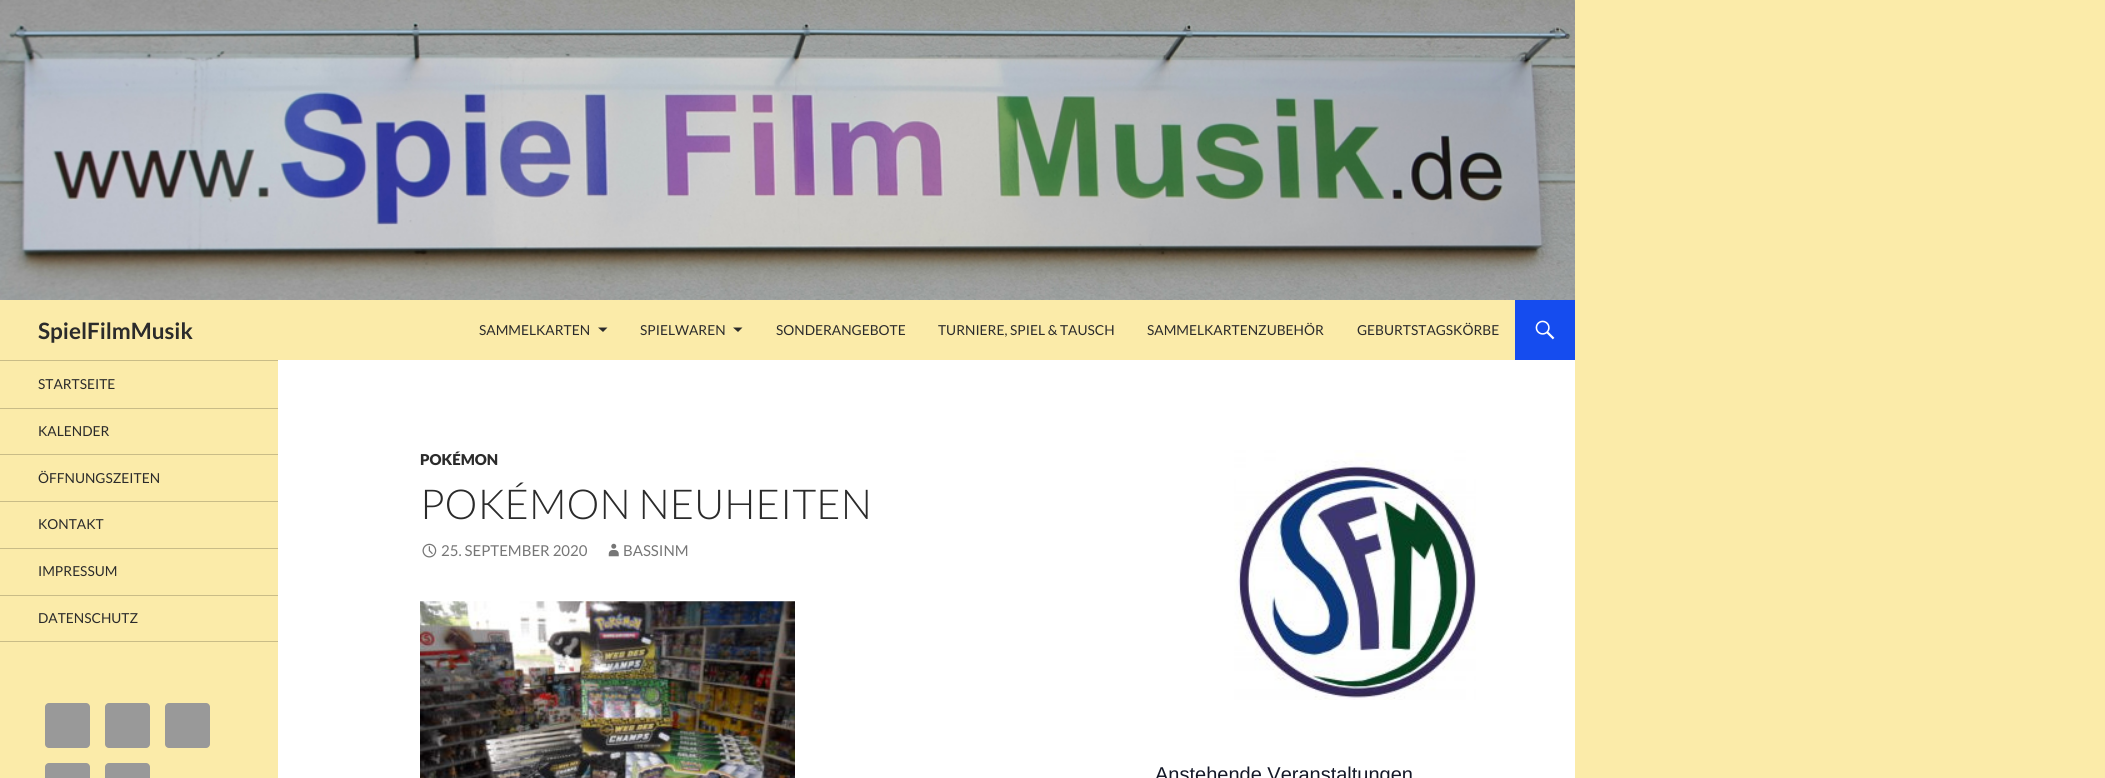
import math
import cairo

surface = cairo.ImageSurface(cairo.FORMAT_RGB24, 2105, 778)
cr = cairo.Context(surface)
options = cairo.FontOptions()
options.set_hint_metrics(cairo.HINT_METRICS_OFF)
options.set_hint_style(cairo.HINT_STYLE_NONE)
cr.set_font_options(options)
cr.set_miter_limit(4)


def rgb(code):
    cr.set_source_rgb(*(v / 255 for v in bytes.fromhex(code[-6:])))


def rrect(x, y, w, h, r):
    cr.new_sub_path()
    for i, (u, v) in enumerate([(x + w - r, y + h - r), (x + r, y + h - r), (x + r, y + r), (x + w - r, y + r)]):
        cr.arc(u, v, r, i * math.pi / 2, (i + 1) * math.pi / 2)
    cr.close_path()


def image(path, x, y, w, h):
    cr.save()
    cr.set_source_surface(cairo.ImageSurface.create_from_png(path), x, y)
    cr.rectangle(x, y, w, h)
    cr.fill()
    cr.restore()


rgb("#fbeba9")
cr.paint()
rgb("#ffffff")
cr.rectangle(278, 360, 1297, 418)
cr.fill()
image("img/1.png", 0, 0, 1575, 300)
rgb("#2b2b2b")
cr.new_path()
cr.move_to(598, 327.5)
cr.line_to(607.5, 327.5)
cr.line_to(603, 332)
cr.close_path()
cr.fill()
cr.new_path()
cr.move_to(733, 327.5)
cr.line_to(742.5, 327.5)
cr.line_to(738, 332)
cr.close_path()
cr.fill()
rgb("#154cef")
cr.rectangle(1515, 300, 60, 60)
cr.fill()
image("img/2.png", 1535, 320, 20, 20)
for x, y, w, h, color in [
    (0, 641, 278, 1, "#c9bc87"),
    (0, 360, 278, 1, "#c9bc87"),
    (0, 408, 278, 1, "#c9bc87"),
    (0, 454, 278, 1, "#c9bc87"),
    (0, 501, 278, 1, "#c9bc87"),
    (0, 548, 278, 1, "#c9bc87"),
    (0, 595, 278, 1, "#c9bc87"),
]:
    rgb(color)
    cr.rectangle(x, y, w, h)
    cr.fill()
rgb("#999999")
rrect(45, 703, 45, 45, 4)
cr.fill()
rrect(105, 703, 45, 45, 4)
cr.fill()
rrect(165, 703, 45, 45, 4)
cr.fill()
rrect(45, 763, 45, 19, 4)
cr.fill()
rrect(105, 763, 45, 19, 4)
cr.fill()
image("img/3.png", 422, 543, 15, 15)
image("img/4.png", 608, 543, 11, 14)
image("img/5.png", 420, 601, 375, 177)
image("img/6.png", 1234, 450, 242, 250)
cr.select_font_face("Lato", cairo.FONT_SLANT_NORMAL, cairo.FONT_WEIGHT_BOLD)
cr.set_font_size(22.5)
rgb("#2b2b2b")
cr.move_to(38, 339)
cr.show_text("SpielFilmMusik")
cr.select_font_face("Lato")
cr.set_font_size(13.75)
for x, y, s in [
    (479, 335, "SAMMELKARTEN"),
    (640, 335, "SPIELWAREN"),
    (776, 335, "SONDERANGEBOTE"),
    (938, 335, "TURNIERE, SPIEL & TAUSCH"),
    (1147, 335, "SAMMELKARTENZUBEHÖR"),
    (1357, 335, "GEBURTSTAGSKÖRBE"),
    (38, 389, "STARTSEITE"),
    (38, 436, "KALENDER"),
    (38, 483, "ÖFFNUNGSZEITEN"),
    (38, 529, "KONTAKT"),
    (38, 576, "IMPRESSUM"),
    (38, 623, "DATENSCHUTZ"),
]:
    cr.move_to(x, y)
    cr.show_text(s)
cr.select_font_face("Lato Black")
cr.set_font_size(15)
cr.move_to(420, 465)
cr.show_text("POKÉMON")
cr.select_font_face("Lato Light")
cr.set_font_size(41.25)
cr.move_to(420, 519)
cr.show_text("POKÉMON NEUHEITEN")
cr.select_font_face("Lato")
cr.set_font_size(15)
rgb("#767676")
cr.move_to(441, 556)
cr.show_text("25. SEPTEMBER 2020")
cr.move_to(623, 556)
cr.show_text("BASSINM")
cr.select_font_face("Liberation Sans")
cr.set_font_size(20)
rgb("#141827")
cr.move_to(1155, 781)
cr.show_text("Anstehende Veranstaltungen")
surface.write_to_png("page.png")
